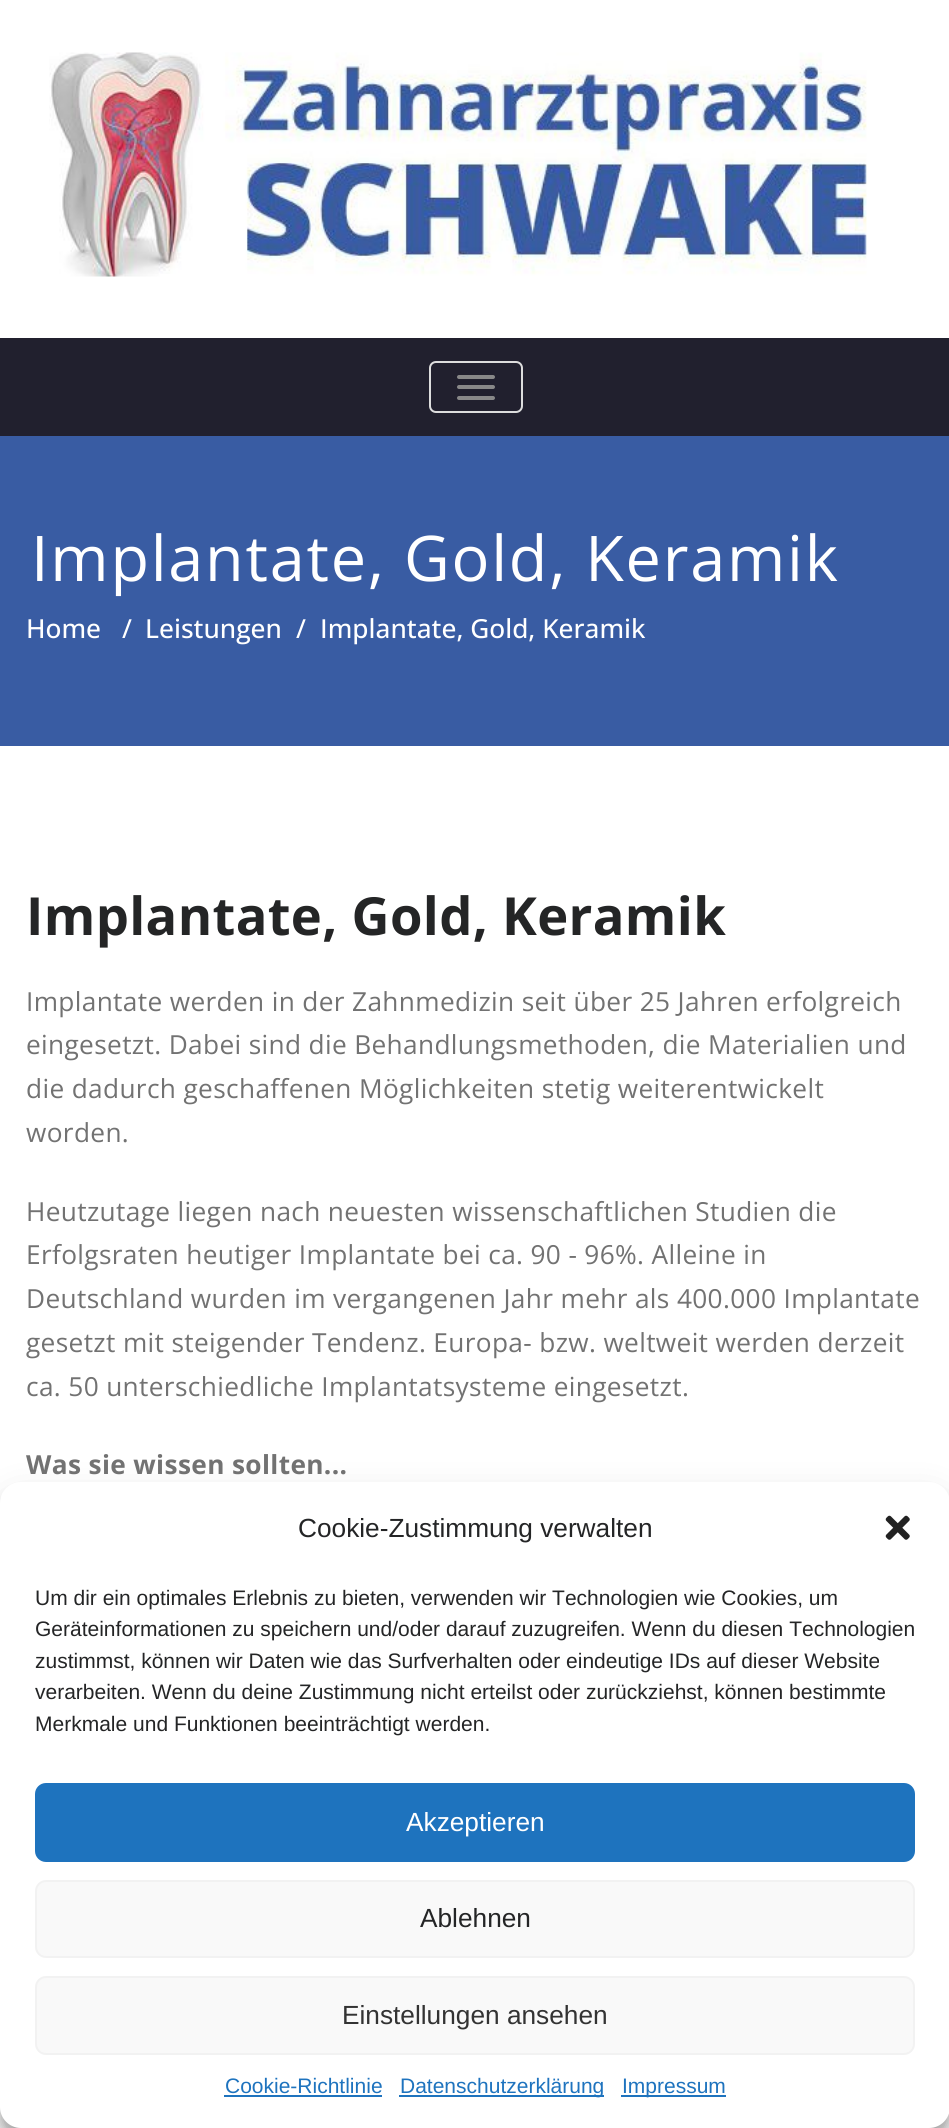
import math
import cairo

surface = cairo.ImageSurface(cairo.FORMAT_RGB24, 949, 2128)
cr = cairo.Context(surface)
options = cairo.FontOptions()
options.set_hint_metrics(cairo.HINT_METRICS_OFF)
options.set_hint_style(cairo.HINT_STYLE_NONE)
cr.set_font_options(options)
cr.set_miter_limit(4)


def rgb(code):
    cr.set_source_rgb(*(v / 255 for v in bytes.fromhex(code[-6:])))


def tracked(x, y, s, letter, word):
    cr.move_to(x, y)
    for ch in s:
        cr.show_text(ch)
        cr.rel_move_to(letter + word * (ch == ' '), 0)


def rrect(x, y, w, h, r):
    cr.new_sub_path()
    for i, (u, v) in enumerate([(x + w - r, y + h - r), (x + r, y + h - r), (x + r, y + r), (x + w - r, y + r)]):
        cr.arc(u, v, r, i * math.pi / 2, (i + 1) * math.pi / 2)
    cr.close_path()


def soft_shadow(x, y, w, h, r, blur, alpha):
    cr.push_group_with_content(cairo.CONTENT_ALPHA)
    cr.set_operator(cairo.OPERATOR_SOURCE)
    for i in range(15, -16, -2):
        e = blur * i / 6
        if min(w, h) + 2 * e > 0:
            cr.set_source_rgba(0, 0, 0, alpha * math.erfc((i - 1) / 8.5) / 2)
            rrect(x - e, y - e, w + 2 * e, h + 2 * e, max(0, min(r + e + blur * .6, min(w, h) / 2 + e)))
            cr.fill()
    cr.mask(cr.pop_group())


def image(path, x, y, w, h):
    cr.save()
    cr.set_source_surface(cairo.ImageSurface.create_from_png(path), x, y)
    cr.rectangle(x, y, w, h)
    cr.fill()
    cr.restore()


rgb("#ffffff")
cr.paint()
image("img/1.png", 49, 52, 818, 225)
rgb("#21202e")
cr.rectangle(0, 338, 949, 98)
cr.fill()
rrect(430, 362, 92, 50, 6)
rgb("#dddddd")
cr.stroke()
rgb("#888888")
rrect(457, 375, 38, 4, 2)
cr.fill()
rrect(457, 385, 38, 4, 2)
cr.fill()
rrect(457, 396, 38, 4, 2)
cr.fill()
rgb("#395ca3")
cr.rectangle(0, 436, 949, 310)
cr.fill()
rgb("#000000")
soft_shadow(0, 1493, 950, 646, 21, 5, 0.23)
soft_shadow(0, 1500, 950, 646, 21, 17.5, 0.19)
rgb("#ffffff")
rrect(0, 1482, 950, 646, 21)
cr.fill()
image("img/2.png", 885, 1515, 25, 25)
rgb("#1e73be")
rrect(36, 1784, 878, 77, 10)
cr.fill_preserve()
cr.stroke()
rgb("#f9f9f9")
rrect(36, 1881, 878, 76, 10)
cr.fill_preserve()
rgb("#f2f2f2")
cr.stroke()
rgb("#f9f9f9")
rrect(36, 1977, 878, 77, 10)
cr.fill_preserve()
rgb("#f2f2f2")
cr.stroke()
for x, y, w, h, color in [
    (224, 2095, 158, 2, "#1e73be"),
    (399, 2095, 205, 2, "#1e73be"),
    (621, 2095, 105, 2, "#1e73be"),
]:
    rgb(color)
    cr.rectangle(x, y, w, h)
    cr.fill()
cr.select_font_face("Open Sans")
cr.set_font_size(63)
rgb("#ffffff")
tracked(31, 581, "Implantate, Gold, Keramik", 1.75, 0)
cr.select_font_face("Open Sans Medium")
cr.set_font_size(26.25)
for x, y, s in [
    (26, 638, "Home"),
    (122, 638, "/"),
    (145, 638, "Leistungen"),
    (296, 638, "/"),
    (320, 638, "Implantate, Gold, Keramik"),
]:
    cr.move_to(x, y)
    cr.show_text(s)
cr.select_font_face("Open Sans", cairo.FONT_SLANT_NORMAL, cairo.FONT_WEIGHT_BOLD)
cr.set_font_size(52.5)
rgb("#242526")
tracked(26, 935, "Implantate, Gold, Keramik", 0.35, 0)
cr.select_font_face("Open Sans")
cr.set_font_size(26.25)
rgb("#727272")
for x, y, s in [
    (26, 1011, "Implantate werden in der Zahnmedizin seit über 25 Jahren erfolgreich"),
    (26, 1054, "eingesetzt. Dabei sind die Behandlungsmethoden, die Materialien und"),
    (26, 1098, "die dadurch geschaffenen Möglichkeiten stetig weiterentwickelt"),
    (26, 1142, "worden."),
    (26, 1221, "Heutzutage liegen nach neuesten wissenschaftlichen Studien die"),
    (26, 1264, "Erfolgsraten heutiger Implantate bei ca. 90 - 96%. Alleine in"),
    (26, 1308, "Deutschland wurden im vergangenen Jahr mehr als 400.000 Implantate"),
    (26, 1352, "gesetzt mit steigender Tendenz. Europa- bzw. weltweit werden derzeit"),
    (26, 1396, "ca. 50 unterschiedliche Implantatsysteme eingesetzt."),
]:
    tracked(x, y, s, 0.35, 0)
cr.select_font_face("Open Sans", cairo.FONT_SLANT_NORMAL, cairo.FONT_WEIGHT_BOLD)
tracked(26, 1474, "Was sie wissen sollten...", 0.35, 0)
cr.select_font_face("Liberation Sans")
rgb("#242526")
cr.move_to(298, 1537)
cr.show_text("Cookie-Zustimmung verwalten")
cr.set_font_size(21)
for x, y, s in [
    (35, 1605, "Um dir ein optimales Erlebnis zu bieten, verwenden wir Technologien wie Cookies, um"),
    (35, 1636, "Geräteinformationen zu speichern und/oder darauf zuzugreifen. Wenn du diesen Technologien"),
    (35, 1668, "zustimmst, können wir Daten wie das Surfverhalten oder eindeutige IDs auf dieser Website"),
    (35, 1699, "verarbeiten. Wenn du deine Zustimmung nicht erteilst oder zurückziehst, können bestimmte"),
    (35, 1731, "Merkmale und Funktionen beeinträchtigt werden."),
]:
    cr.move_to(x, y)
    cr.show_text(s)
cr.set_font_size(26.25)
rgb("#ffffff")
cr.move_to(406, 1831)
cr.show_text("Akzeptieren")
rgb("#242526")
cr.move_to(420, 1927)
cr.show_text("Ablehnen")
rgb("#333333")
cr.move_to(342, 2024)
cr.show_text("Einstellungen ansehen")
cr.set_font_size(21)
rgb("#1e73be")
for x, y, s in [
    (225, 2093, "Cookie-Richtlinie"),
    (400, 2093, "Datenschutzerklärung"),
    (622, 2093, "Impressum"),
]:
    cr.move_to(x, y)
    cr.show_text(s)
surface.write_to_png("page.png")
